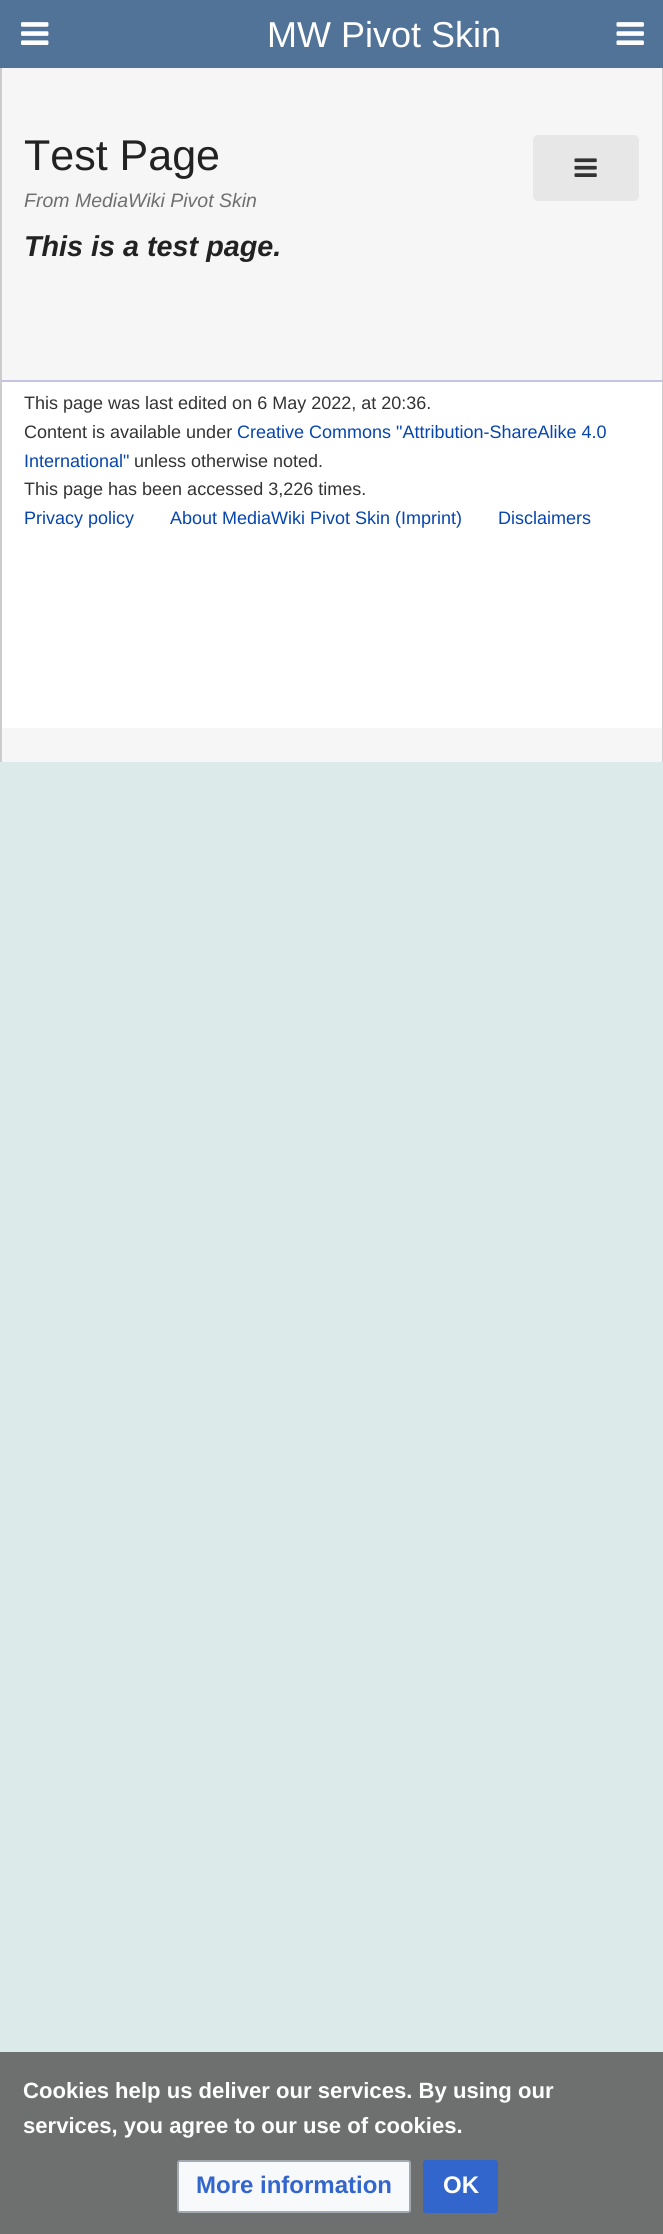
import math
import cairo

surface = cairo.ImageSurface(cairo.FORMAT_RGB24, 663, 2234)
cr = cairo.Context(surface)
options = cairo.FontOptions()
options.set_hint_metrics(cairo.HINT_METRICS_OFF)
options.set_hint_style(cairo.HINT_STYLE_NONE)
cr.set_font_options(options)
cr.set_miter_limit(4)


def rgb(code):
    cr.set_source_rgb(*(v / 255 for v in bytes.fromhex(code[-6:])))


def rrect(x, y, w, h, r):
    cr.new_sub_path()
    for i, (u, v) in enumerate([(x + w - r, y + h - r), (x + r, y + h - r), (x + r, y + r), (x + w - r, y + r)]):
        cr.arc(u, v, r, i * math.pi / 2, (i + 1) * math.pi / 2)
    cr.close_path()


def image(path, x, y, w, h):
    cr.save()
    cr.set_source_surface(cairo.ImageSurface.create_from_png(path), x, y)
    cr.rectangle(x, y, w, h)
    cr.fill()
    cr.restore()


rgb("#dceaea")
cr.paint()
rgb("#517398")
cr.rectangle(0, 0, 663, 68)
cr.fill()
image("img/1.png", 21, 22, 28, 23)
image("img/2.png", 616, 22, 28, 23)
for x, y, w, h, color in [
    (2, 68, 660, 694, "#f6f6f6"),
    (662, 68, 1, 694, "#cccccc"),
    (0, 68, 2, 694, "#cccccc"),
]:
    rgb(color)
    cr.rectangle(x, y, w, h)
    cr.fill()
rgb("#e7e7e7")
rrect(533, 135, 106, 66, 5)
cr.fill()
image("img/3.png", 574, 158, 23, 19)
for x, y, w, h, color in [
    (2, 382, 660, 346, "#ffffff"),
    (2, 380, 660, 2, "#c3c3e5"),
    (0, 2052, 663, 182, "#6e7070"),
]:
    rgb(color)
    cr.rectangle(x, y, w, h)
    cr.fill()
rgb("#f8f9fa")
rrect(178, 2161, 232, 51, 2)
cr.fill_preserve()
rgb("#a2a9b1")
cr.stroke()
rgb("#3366cc")
rrect(424, 2161, 73, 51, 2)
cr.fill_preserve()
cr.stroke()
cr.select_font_face("Liberation Sans")
cr.set_font_size(36)
rgb("#ffffff")
cr.move_to(267, 47)
cr.show_text("MW Pivot Skin")
cr.set_font_size(43)
rgb("#222222")
cr.move_to(24, 170)
cr.show_text("Test Page")
cr.select_font_face("Liberation Sans", cairo.FONT_SLANT_ITALIC)
cr.set_font_size(19.5)
rgb("#6f6f6f")
cr.move_to(24, 207)
cr.show_text("From MediaWiki Pivot Skin")
cr.select_font_face("Liberation Sans", cairo.FONT_SLANT_ITALIC, cairo.FONT_WEIGHT_BOLD)
cr.set_font_size(28.75)
rgb("#222222")
cr.move_to(24, 256)
cr.show_text("This is a test page.")
cr.select_font_face("Liberation Sans")
cr.set_font_size(18)
rgb("#333333")
cr.move_to(24, 409)
cr.show_text("This page was last edited on 6 May 2022, at 20:36.")
cr.move_to(24, 438)
cr.show_text("Content is available under")
rgb("#0645ad")
cr.move_to(237, 438)
cr.show_text("Creative Commons \"Attribution-ShareAlike 4.0")
cr.move_to(24, 467)
cr.show_text("International\"")
rgb("#333333")
cr.move_to(134, 467)
cr.show_text("unless otherwise noted.")
cr.move_to(24, 495)
cr.show_text("This page has been accessed 3,226 times.")
rgb("#0645ad")
for x, y, s in [
    (24, 524, "Privacy policy"),
    (170, 524, "About MediaWiki Pivot Skin (Imprint)"),
    (498, 524, "Disclaimers"),
]:
    cr.move_to(x, y)
    cr.show_text(s)
cr.select_font_face("Liberation Sans", cairo.FONT_SLANT_NORMAL, cairo.FONT_WEIGHT_BOLD)
cr.set_font_size(22.1)
rgb("#ffffff")
cr.move_to(23, 2098)
cr.show_text("Cookies help us deliver our services. By using our")
cr.move_to(23, 2133)
cr.show_text("services, you agree to our use of cookies.")
cr.set_font_size(24)
rgb("#3366cc")
cr.move_to(196, 2193)
cr.show_text("More information")
rgb("#ffffff")
cr.move_to(443, 2193)
cr.show_text("OK")
surface.write_to_png("page.png")
